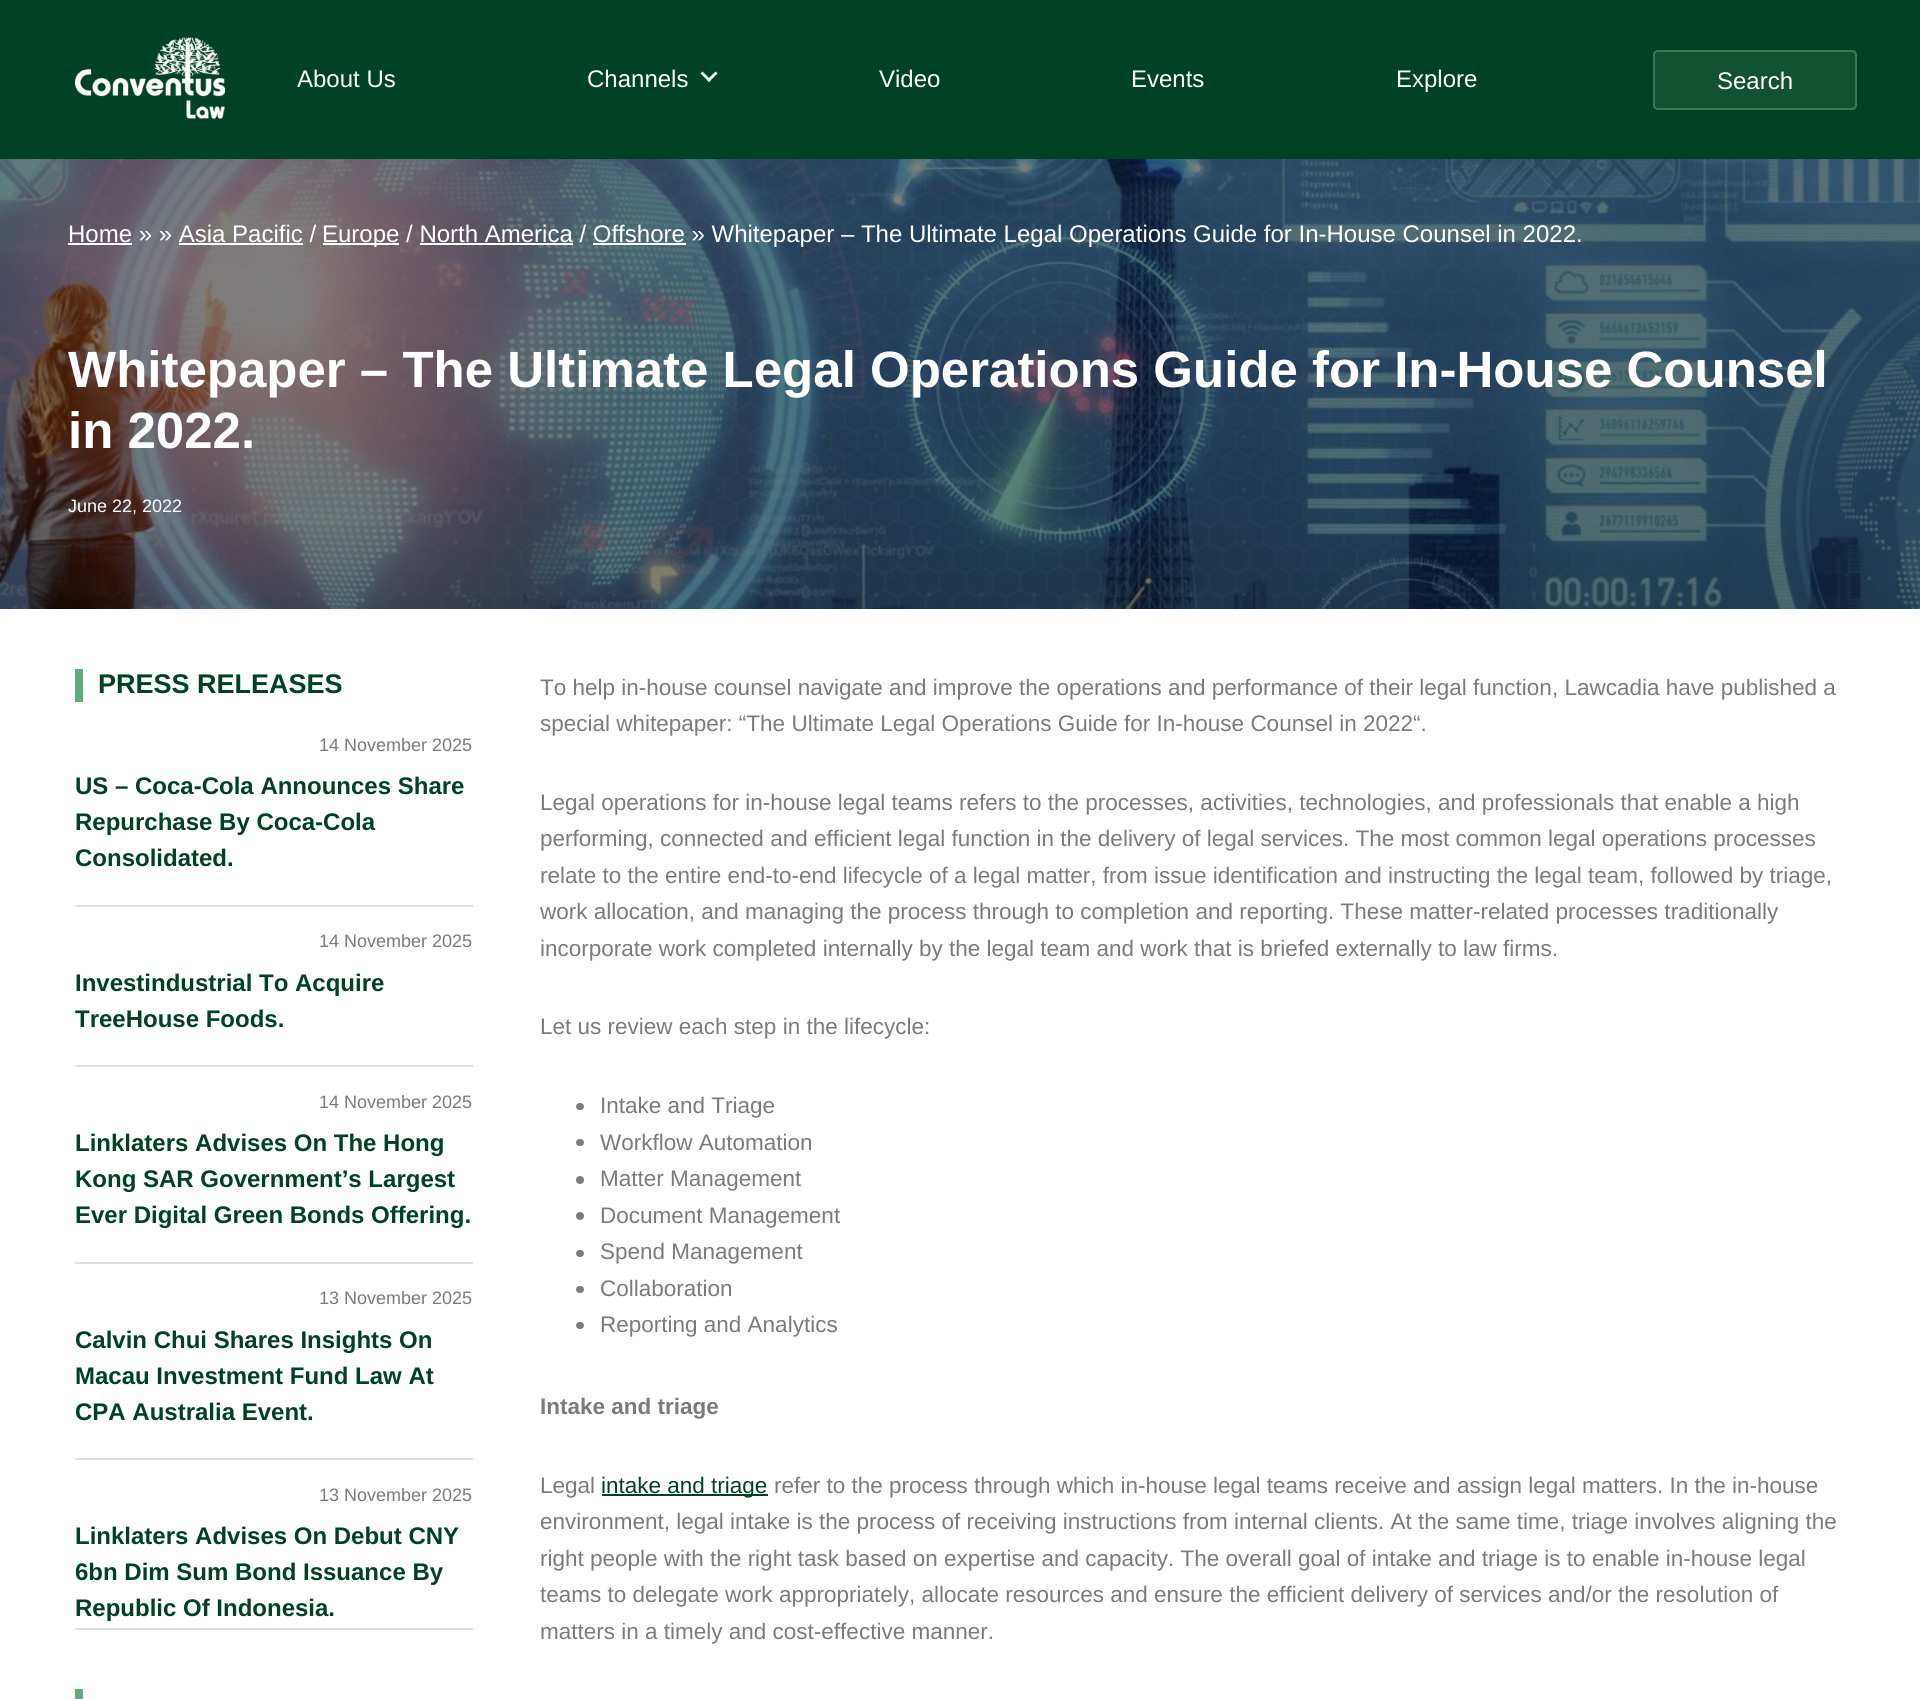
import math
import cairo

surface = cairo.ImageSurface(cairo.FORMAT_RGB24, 1920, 1699)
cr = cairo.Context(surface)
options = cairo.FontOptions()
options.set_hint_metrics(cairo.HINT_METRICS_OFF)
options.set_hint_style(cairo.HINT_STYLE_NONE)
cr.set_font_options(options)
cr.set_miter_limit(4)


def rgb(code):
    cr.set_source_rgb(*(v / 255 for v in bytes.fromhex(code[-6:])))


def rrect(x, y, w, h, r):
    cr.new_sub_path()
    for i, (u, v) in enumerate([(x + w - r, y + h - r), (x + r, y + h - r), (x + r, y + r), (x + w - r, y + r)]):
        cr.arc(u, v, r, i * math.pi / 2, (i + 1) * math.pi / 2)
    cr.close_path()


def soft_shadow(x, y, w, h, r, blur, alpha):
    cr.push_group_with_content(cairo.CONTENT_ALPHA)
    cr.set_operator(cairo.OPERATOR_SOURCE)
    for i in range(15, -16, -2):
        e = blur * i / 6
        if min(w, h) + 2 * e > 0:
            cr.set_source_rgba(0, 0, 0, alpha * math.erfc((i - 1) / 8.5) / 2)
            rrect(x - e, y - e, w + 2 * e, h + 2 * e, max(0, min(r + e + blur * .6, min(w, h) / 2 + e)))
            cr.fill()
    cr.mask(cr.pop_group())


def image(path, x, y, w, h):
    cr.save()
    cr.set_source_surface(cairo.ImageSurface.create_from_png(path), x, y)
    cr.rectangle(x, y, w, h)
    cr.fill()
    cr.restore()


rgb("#ffffff")
cr.paint()
image("img/2.png", 0, 159, 1920, 450)
rgb("#000000")
soft_shadow(0, 0, 1920, 159, 0, 15, 0.05)
rgb("#004225")
cr.rectangle(0, 0, 1920, 159)
cr.fill()
image("img/1.png", 75, 37, 150, 82)
rgb("#ffffff")
cr.new_path()
cr.move_to(709, 82)
cr.line_to(700.5, 73.5)
cr.line_to(702.5, 71.5)
cr.line_to(711, 80)
cr.close_path()
cr.fill()
cr.new_path()
cr.move_to(709, 82)
cr.line_to(707, 80)
cr.line_to(715.5, 71.5)
cr.line_to(717.5, 73.5)
cr.close_path()
cr.fill()
rgb("#105231")
rrect(1653, 50, 204, 60, 5)
cr.fill()
rrect(1654, 51, 202, 58, 4)
cr.set_source_rgba(1, 1, 1, 0.2)
cr.stroke()
for x, y, w, h, color in [
    (68, 243, 64, 2, "#ffffff"),
    (179, 243, 124, 2, "#ffffff"),
    (323, 243, 76, 2, "#ffffff"),
    (420, 243, 153, 2, "#ffffff"),
    (593, 243, 93, 2, "#ffffff"),
    (75, 669, 8, 33, "#60aa80"),
    (75, 905, 398, 2, "#dddddd"),
    (75, 1065, 398, 2, "#dddddd"),
    (75, 1262, 398, 2, "#dddddd"),
    (75, 1458, 398, 2, "#dddddd"),
    (75, 1628, 398, 2, "#dddddd"),
    (75, 1689, 8, 10, "#60aa80"),
]:
    rgb(color)
    cr.rectangle(x, y, w, h)
    cr.fill()
rgb("#7a7c7c")
rrect(576, 1103, 8, 7, 3.5)
cr.fill()
rrect(576, 1139, 8, 7, 3.5)
cr.fill()
cr.arc(580, 1180, 4, 0, 2 * math.pi)
cr.fill()
cr.arc(580, 1216, 4, 0, 2 * math.pi)
cr.fill()
rrect(576, 1250, 8, 7, 3.5)
cr.fill()
rrect(576, 1286, 8, 7, 3.5)
cr.fill()
rrect(576, 1322, 8, 7, 3.5)
cr.fill()
rgb("#004225")
cr.rectangle(602, 1494, 166, 2)
cr.fill()
cr.select_font_face("Liberation Sans")
cr.set_font_size(24)
rgb("#ffffff")
for x, y, s in [
    (297, 87, "About Us"),
    (587, 87, "Channels"),
    (879, 87, "Video"),
    (1131, 87, "Events"),
    (1396, 87, "Explore"),
    (1717, 89, "Search"),
    (68, 242, "Home » » Asia Pacific /"),
    (322, 242, "Europe / North America / Offshore » Whitepaper – The Ultimate Legal Operations Guide for In-House Counsel in 2022."),
]:
    cr.move_to(x, y)
    cr.show_text(s)
cr.select_font_face("Liberation Sans", cairo.FONT_SLANT_NORMAL, cairo.FONT_WEIGHT_BOLD)
cr.set_font_size(51)
cr.move_to(68, 387)
cr.show_text("Whitepaper – The Ultimate Legal Operations Guide for In-House Counsel")
cr.move_to(68, 448)
cr.show_text("in 2022.")
cr.select_font_face("Liberation Sans")
cr.set_font_size(18)
cr.move_to(68, 512)
cr.show_text("June 22, 2022")
cr.select_font_face("Liberation Sans", cairo.FONT_SLANT_NORMAL, cairo.FONT_WEIGHT_BOLD)
cr.set_font_size(27)
rgb("#004225")
cr.move_to(98, 693)
cr.show_text("PRESS RELEASES")
cr.select_font_face("Liberation Sans")
cr.set_font_size(18)
rgb("#7a7c7c")
cr.move_to(319, 751)
cr.show_text("14 November 2025")
cr.select_font_face("Liberation Sans", cairo.FONT_SLANT_NORMAL, cairo.FONT_WEIGHT_BOLD)
cr.set_font_size(24)
rgb("#004225")
for x, y, s in [
    (75, 794, "US – Coca-Cola Announces Share"),
    (75, 830, "Repurchase By Coca-Cola"),
    (75, 866, "Consolidated."),
]:
    cr.move_to(x, y)
    cr.show_text(s)
cr.select_font_face("Liberation Sans")
cr.set_font_size(18)
rgb("#7a7c7c")
cr.move_to(319, 947)
cr.show_text("14 November 2025")
cr.select_font_face("Liberation Sans", cairo.FONT_SLANT_NORMAL, cairo.FONT_WEIGHT_BOLD)
cr.set_font_size(24)
rgb("#004225")
cr.move_to(75, 991)
cr.show_text("Investindustrial To Acquire")
cr.move_to(75, 1027)
cr.show_text("TreeHouse Foods.")
cr.select_font_face("Liberation Sans")
cr.set_font_size(18)
rgb("#7a7c7c")
cr.move_to(319, 1108)
cr.show_text("14 November 2025")
cr.select_font_face("Liberation Sans", cairo.FONT_SLANT_NORMAL, cairo.FONT_WEIGHT_BOLD)
cr.set_font_size(24)
rgb("#004225")
for x, y, s in [
    (75, 1151, "Linklaters Advises On The Hong"),
    (75, 1187, "Kong SAR Government’s Largest"),
    (75, 1223, "Ever Digital Green Bonds Offering."),
]:
    cr.move_to(x, y)
    cr.show_text(s)
cr.select_font_face("Liberation Sans")
cr.set_font_size(18)
rgb("#7a7c7c")
cr.move_to(319, 1304)
cr.show_text("13 November 2025")
cr.select_font_face("Liberation Sans", cairo.FONT_SLANT_NORMAL, cairo.FONT_WEIGHT_BOLD)
cr.set_font_size(24)
rgb("#004225")
for x, y, s in [
    (75, 1348, "Calvin Chui Shares Insights On"),
    (75, 1384, "Macau Investment Fund Law At"),
    (75, 1420, "CPA Australia Event."),
]:
    cr.move_to(x, y)
    cr.show_text(s)
cr.select_font_face("Liberation Sans")
cr.set_font_size(18)
rgb("#7a7c7c")
cr.move_to(319, 1501)
cr.show_text("13 November 2025")
cr.select_font_face("Liberation Sans", cairo.FONT_SLANT_NORMAL, cairo.FONT_WEIGHT_BOLD)
cr.set_font_size(24)
rgb("#004225")
for x, y, s in [
    (75, 1544, "Linklaters Advises On Debut CNY"),
    (75, 1580, "6bn Dim Sum Bond Issuance By"),
    (75, 1616, "Republic Of Indonesia."),
]:
    cr.move_to(x, y)
    cr.show_text(s)
cr.select_font_face("Liberation Sans")
cr.set_font_size(22.5)
rgb("#7a7c7c")
for x, y, s in [
    (540, 695, "To help in-house counsel navigate and improve the operations and performance of their legal function, Lawcadia have published a"),
    (540, 731, "special whitepaper: “The Ultimate Legal Operations Guide for In-house Counsel in 2022“."),
    (540, 810, "Legal operations for in-house legal teams refers to the processes, activities, technologies, and professionals that enable a high"),
    (540, 846, "performing, connected and efficient legal function in the delivery of legal services. The most common legal operations processes"),
    (540, 883, "relate to the entire end-to-end lifecycle of a legal matter, from issue identification and instructing the legal team, followed by triage,"),
    (540, 919, "work allocation, and managing the process through to completion and reporting. These matter-related processes traditionally"),
    (540, 956, "incorporate work completed internally by the legal team and work that is briefed externally to law firms."),
    (540, 1034, "Let us review each step in the lifecycle:"),
    (600, 1113, "Intake and Triage"),
    (600, 1150, "Workflow Automation"),
    (600, 1186, "Matter Management"),
    (600, 1223, "Document Management"),
    (600, 1259, "Spend Management"),
    (600, 1296, "Collaboration"),
    (600, 1332, "Reporting and Analytics"),
]:
    cr.move_to(x, y)
    cr.show_text(s)
cr.select_font_face("Liberation Sans", cairo.FONT_SLANT_NORMAL, cairo.FONT_WEIGHT_BOLD)
cr.move_to(540, 1414)
cr.show_text("Intake and triage")
cr.select_font_face("Liberation Sans")
cr.move_to(540, 1493)
cr.show_text("Legal")
rgb("#004225")
cr.move_to(601, 1493)
cr.show_text("intake and triage")
rgb("#7a7c7c")
for x, y, s in [
    (774, 1493, "refer to the process through which in-house legal teams receive and assign legal matters. In the in-house"),
    (540, 1529, "environment, legal intake is the process of receiving instructions from internal clients. At the same time, triage involves aligning the"),
    (540, 1566, "right people with the right task based on expertise and capacity. The overall goal of intake and triage is to enable in-house legal"),
    (540, 1602, "teams to delegate work appropriately, allocate resources and ensure the efficient delivery of services and/or the resolution of"),
    (540, 1639, "matters in a timely and cost-effective manner."),
]:
    cr.move_to(x, y)
    cr.show_text(s)
surface.write_to_png("page.png")
